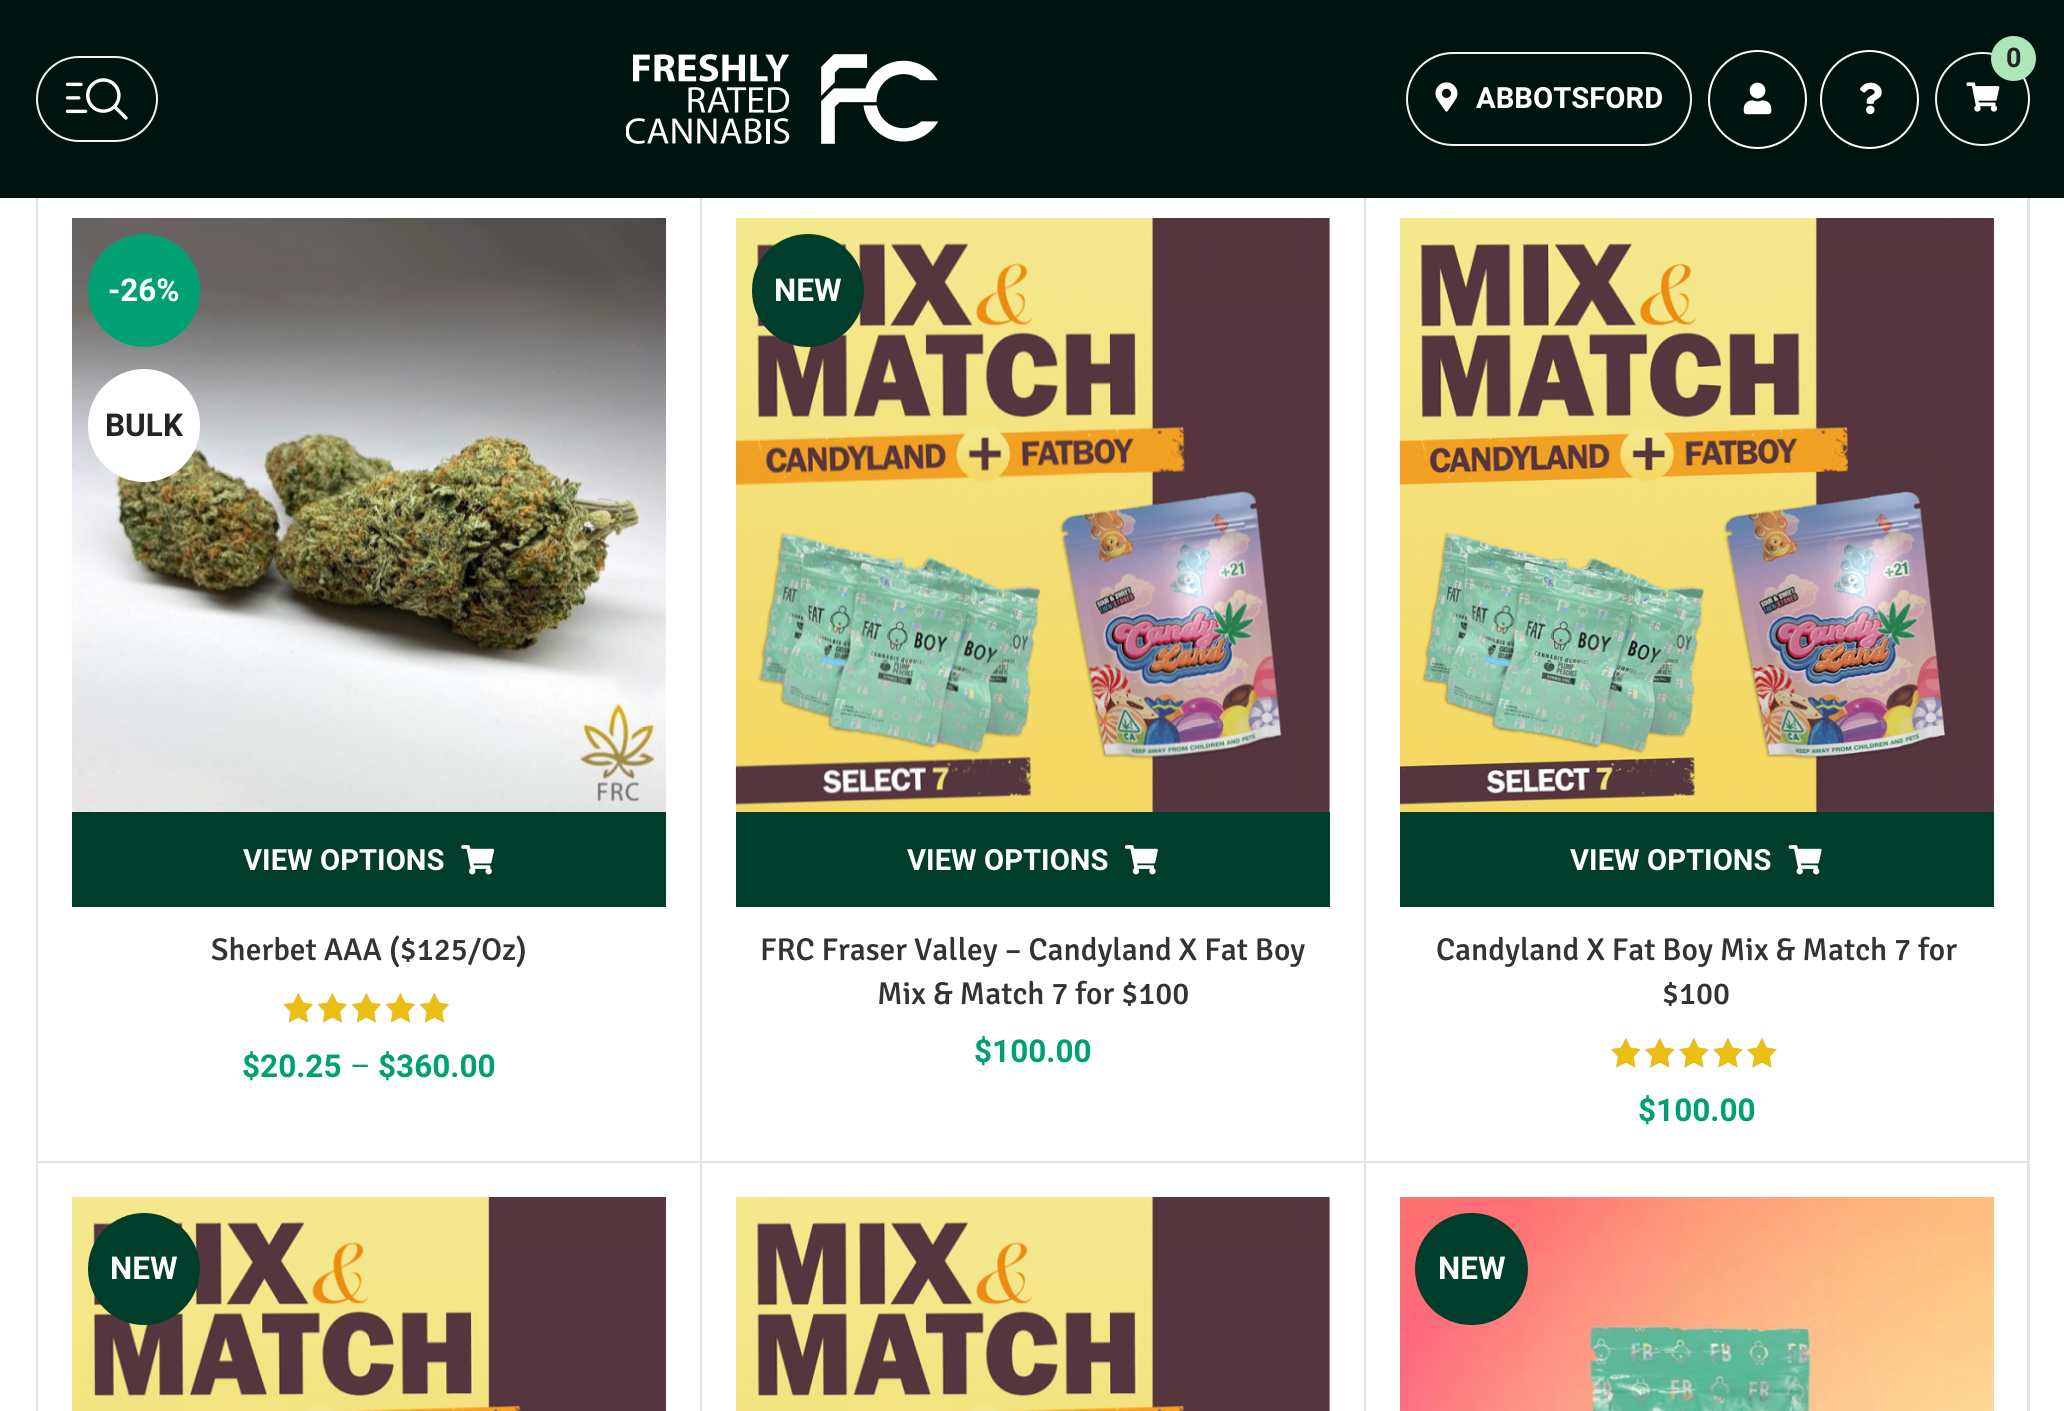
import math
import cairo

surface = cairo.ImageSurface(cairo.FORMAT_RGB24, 2064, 1411)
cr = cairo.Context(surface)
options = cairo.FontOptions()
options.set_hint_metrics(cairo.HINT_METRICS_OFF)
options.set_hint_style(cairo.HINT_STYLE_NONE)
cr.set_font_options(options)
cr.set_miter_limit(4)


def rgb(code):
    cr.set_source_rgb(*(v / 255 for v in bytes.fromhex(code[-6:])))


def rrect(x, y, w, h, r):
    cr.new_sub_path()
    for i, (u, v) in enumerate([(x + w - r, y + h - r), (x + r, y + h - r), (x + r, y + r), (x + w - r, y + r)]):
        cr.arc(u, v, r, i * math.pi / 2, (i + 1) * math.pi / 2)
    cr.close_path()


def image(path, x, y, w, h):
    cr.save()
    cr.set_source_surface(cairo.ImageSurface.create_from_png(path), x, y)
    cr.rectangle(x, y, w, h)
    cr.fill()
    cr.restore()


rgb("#ffffff")
cr.paint()
cr.set_source_rgba(0, 0, 0, 0.11)
cr.new_path()
cr.move_to(702, 182)
cr.line_to(702, 1163)
cr.line_to(700, 1161)
cr.line_to(700, 184)
cr.close_path()
cr.fill()
cr.new_path()
cr.move_to(1366, 182)
cr.line_to(1366, 1163)
cr.line_to(1364, 1161)
cr.line_to(1364, 184)
cr.close_path()
cr.fill()
cr.new_path()
cr.move_to(2030, 182)
cr.line_to(2030, 1163)
cr.line_to(2027, 1161)
cr.line_to(2027, 184)
cr.close_path()
cr.fill()
rgb("#00140f")
cr.rectangle(0, 0, 2064, 198)
cr.fill()
rrect(37, 57, 120, 84, 42)
rgb("#f3f3f3")
cr.stroke()
image("img/1.png", 65, 78, 63, 42)
image("img/2.png", 626, 54, 312, 90)
rrect(1407, 53, 284, 92, 46)
cr.stroke()
image("img/3.png", 1435, 82, 23, 30)
image("img/4.png", 1743, 82, 29, 33)
cr.arc(1757.5, 99.5, 48.5, 0, 2 * math.pi)
rgb("#ffffff")
cr.stroke()
image("img/5.png", 1860, 82, 22, 33)
cr.arc(1869.5, 99.5, 48.5, 0, 2 * math.pi)
cr.stroke()
rrect(1936, 53, 93, 92, 46)
rgb("#f3f3f3")
cr.stroke()
rgb("#ade6b9")
cr.arc(2013.5, 58.5, 22.5, 0, 2 * math.pi)
cr.fill()
image("img/6.png", 1966, 82, 34, 30)
rgb("#e4e4e4")
cr.rectangle(36, 198, 2, 1213)
cr.fill()
cr.set_source_rgba(0, 0, 0, 0.11)
cr.new_path()
cr.move_to(702, 1163)
cr.line_to(38, 1163)
cr.line_to(38, 1161)
cr.line_to(700, 1161)
cr.close_path()
cr.fill()
image("img/7.png", 72, 218, 594, 594)
rgb("#00a073")
rrect(88, 234, 112, 113, 56)
cr.fill()
rgb("#ffffff")
rrect(88, 369, 112, 113, 56)
cr.fill()
rgb("#003d2b")
cr.rectangle(72, 812, 594, 95)
cr.fill()
image("img/8.png", 461, 845, 34, 30)
image("img/9.png", 283, 993, 166, 30)
image("img/10.png", 284, 993, 165, 30)
cr.set_source_rgba(0, 0, 0, 0.11)
cr.new_path()
cr.move_to(1366, 1163)
cr.line_to(702, 1163)
cr.line_to(702, 1161)
cr.line_to(1364, 1161)
cr.close_path()
cr.fill()
image("img/11.png", 735, 218, 595, 595)
rgb("#003d2b")
rrect(752, 234, 112, 113, 56)
cr.fill()
cr.rectangle(736, 812, 594, 95)
cr.fill()
image("img/12.png", 1125, 845, 33, 30)
cr.set_source_rgba(0, 0, 0, 0.11)
cr.new_path()
cr.move_to(2030, 1163)
cr.line_to(1366, 1163)
cr.line_to(1366, 1161)
cr.line_to(2027, 1161)
cr.close_path()
cr.fill()
image("img/13.png", 1400, 218, 594, 594)
rgb("#003d2b")
cr.rectangle(1400, 812, 594, 95)
cr.fill()
image("img/14.png", 1788, 845, 34, 30)
image("img/15.png", 1611, 1038, 166, 30)
image("img/16.png", 1611, 1038, 166, 30)
rgb("#e4e4e4")
cr.new_path()
cr.move_to(702, 1163)
cr.line_to(702, 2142)
cr.line_to(700, 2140)
cr.line_to(700, 1163)
cr.close_path()
cr.fill()
image("img/17.png", 72, 1197, 594, 214)
rgb("#003d2b")
cr.arc(144, 1269, 56, 0, 2 * math.pi)
cr.fill()
rgb("#e4e4e4")
cr.new_path()
cr.move_to(1366, 1163)
cr.line_to(1366, 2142)
cr.line_to(1364, 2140)
cr.line_to(1364, 1163)
cr.close_path()
cr.fill()
image("img/18.png", 735, 1197, 595, 214)
cr.new_path()
cr.move_to(2030, 1163)
cr.line_to(2030, 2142)
cr.line_to(2027, 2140)
cr.line_to(2027, 1163)
cr.close_path()
cr.fill()
image("img/19.png", 1400, 1197, 594, 214)
rgb("#003d2b")
rrect(1415, 1213, 113, 112, 56)
cr.fill()
cr.select_font_face("Roboto", cairo.FONT_SLANT_NORMAL, cairo.FONT_WEIGHT_BOLD)
cr.set_font_size(29.25)
rgb("#ffffff")
cr.move_to(1476, 108)
cr.show_text("ABBOTSFORD")
cr.set_font_size(27)
rgb("#242424")
cr.move_to(2006, 67)
cr.show_text("0")
cr.set_font_size(31.5)
rgb("#ffffff")
cr.move_to(108, 301)
cr.show_text("-26%")
rgb("#242424")
cr.move_to(105, 436)
cr.show_text("BULK")
cr.set_font_size(29.25)
rgb("#ffffff")
cr.move_to(243, 870)
cr.show_text("VIEW OPTIONS")
cr.select_font_face("Signika Medium")
cr.set_font_size(31.5)
rgb("#333333")
cr.move_to(211, 960)
cr.show_text("Sherbet AAA ($125/Oz)")
cr.select_font_face("Roboto", cairo.FONT_SLANT_NORMAL, cairo.FONT_WEIGHT_BOLD)
rgb("#00a073")
cr.move_to(242, 1077)
cr.show_text("$20.25")
cr.select_font_face("Roboto")
cr.move_to(350, 1077)
cr.show_text("–")
cr.select_font_face("Roboto", cairo.FONT_SLANT_NORMAL, cairo.FONT_WEIGHT_BOLD)
cr.move_to(378, 1077)
cr.show_text("$360.00")
rgb("#ffffff")
cr.move_to(774, 301)
cr.show_text("NEW")
cr.set_font_size(29.25)
cr.move_to(907, 870)
cr.show_text("VIEW OPTIONS")
cr.select_font_face("Signika Medium")
cr.set_font_size(31.5)
rgb("#333333")
cr.move_to(760, 960)
cr.show_text("FRC Fraser Valley – Candyland X Fat Boy")
cr.move_to(877, 1004)
cr.show_text("Mix & Match 7 for $100")
cr.select_font_face("Roboto", cairo.FONT_SLANT_NORMAL, cairo.FONT_WEIGHT_BOLD)
rgb("#00a073")
cr.move_to(974, 1062)
cr.show_text("$100.00")
cr.set_font_size(29.25)
rgb("#ffffff")
cr.move_to(1570, 870)
cr.show_text("VIEW OPTIONS")
cr.select_font_face("Signika Medium")
cr.set_font_size(31.5)
rgb("#333333")
cr.move_to(1436, 960)
cr.show_text("Candyland X Fat Boy Mix & Match 7 for")
cr.move_to(1662, 1004)
cr.show_text("$100")
cr.select_font_face("Roboto", cairo.FONT_SLANT_NORMAL, cairo.FONT_WEIGHT_BOLD)
rgb("#00a073")
cr.move_to(1638, 1121)
cr.show_text("$100.00")
rgb("#ffffff")
cr.move_to(110, 1279)
cr.show_text("NEW")
cr.move_to(1438, 1279)
cr.show_text("NEW")
surface.write_to_png("page.png")
